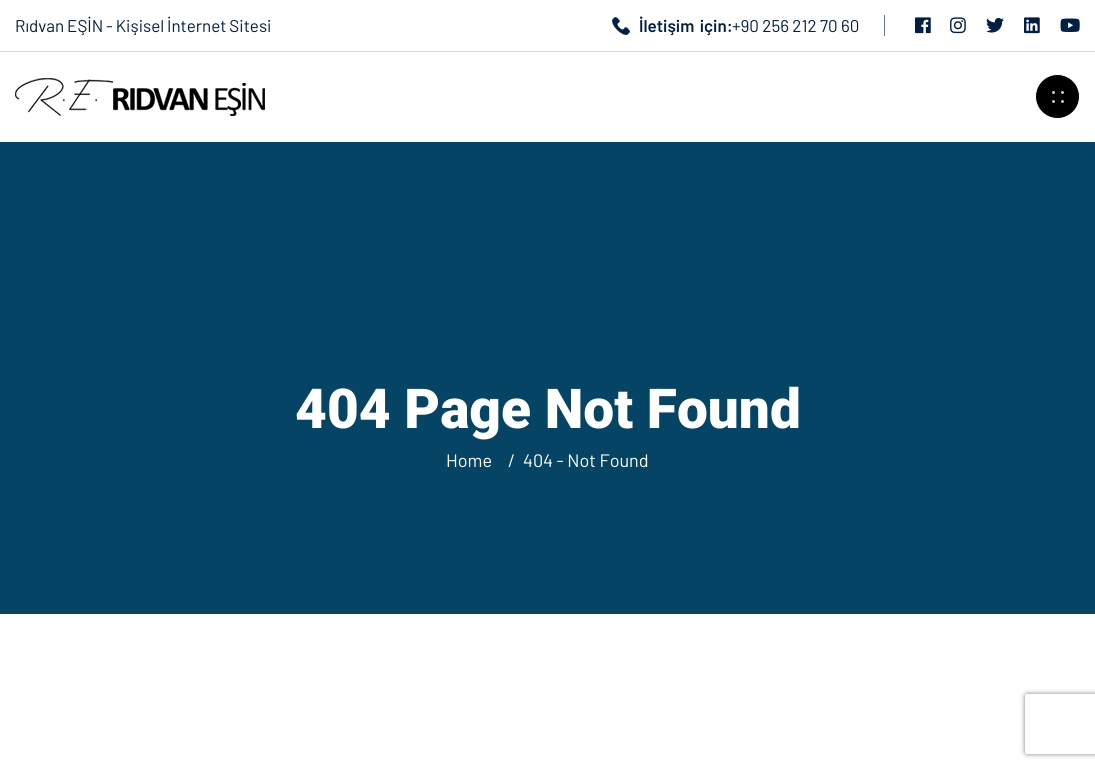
import math
import cairo

surface = cairo.ImageSurface(cairo.FORMAT_RGB24, 1095, 768)
cr = cairo.Context(surface)
options = cairo.FontOptions()
options.set_hint_metrics(cairo.HINT_METRICS_OFF)
options.set_hint_style(cairo.HINT_STYLE_NONE)
cr.set_font_options(options)
cr.set_miter_limit(4)


def rgb(code):
    cr.set_source_rgb(*(v / 255 for v in bytes.fromhex(code[-6:])))


def tracked(x, y, s, letter, word):
    cr.move_to(x, y)
    for ch in s:
        cr.show_text(ch)
        cr.rel_move_to(letter + word * (ch == ' '), 0)


def rrect(x, y, w, h, r):
    cr.new_sub_path()
    for i, (u, v) in enumerate([(x + w - r, y + h - r), (x + r, y + h - r), (x + r, y + r), (x + w - r, y + r)]):
        cr.arc(u, v, r, i * math.pi / 2, (i + 1) * math.pi / 2)
    cr.close_path()


def soft_shadow(x, y, w, h, r, blur, alpha):
    cr.push_group_with_content(cairo.CONTENT_ALPHA)
    cr.set_operator(cairo.OPERATOR_SOURCE)
    for i in range(15, -16, -2):
        e = blur * i / 6
        if min(w, h) + 2 * e > 0:
            cr.set_source_rgba(0, 0, 0, alpha * math.erfc((i - 1) / 8.5) / 2)
            rrect(x - e, y - e, w + 2 * e, h + 2 * e, max(0, min(r + e + blur * .6, min(w, h) / 2 + e)))
            cr.fill()
    cr.mask(cr.pop_group())


def image(path, x, y, w, h):
    cr.save()
    cr.set_source_surface(cairo.ImageSurface.create_from_png(path), x, y)
    cr.rectangle(x, y, w, h)
    cr.fill()
    cr.restore()


rgb("#ffffff")
cr.paint()
rgb("#d9d9d9")
cr.rectangle(0, 51, 1095, 1)
cr.fill()
image("img/1.png", 612, 17, 18, 18)
rgb("#67788f")
cr.rectangle(884, 15, 1, 21)
cr.fill()
image("img/2.png", 915, 17, 16, 17)
image("img/3.png", 950, 17, 16, 17)
image("img/4.png", 986, 17, 18, 16)
image("img/5.png", 1024, 17, 16, 17)
image("img/6.png", 1060, 18, 20, 14)
image("img/7.png", 15, 78, 250, 38)
rgb("#000000")
cr.arc(1057.5, 96.5, 22, 0, 2 * math.pi)
cr.fill_preserve()
rgb("#ffffff")
cr.set_line_width(1)
cr.stroke()
image("img/8.png", 1052, 91, 12, 12)
rgb("#054465")
cr.rectangle(0, 142, 1095, 472)
cr.fill()
cr.save()
cr.set_fill_rule(cairo.FILL_RULE_EVEN_ODD)
cr.new_path()
cr.move_to(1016, 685)
cr.line_to(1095, 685)
cr.line_to(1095, 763)
cr.line_to(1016, 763)
cr.close_path()
cr.move_to(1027, 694)
cr.line_to(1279, 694)
cr.curve_to(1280, 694, 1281, 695, 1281, 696)
cr.line_to(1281, 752)
cr.curve_to(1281, 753, 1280, 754, 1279, 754)
cr.line_to(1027, 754)
cr.curve_to(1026, 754, 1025, 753, 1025, 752)
cr.line_to(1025, 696)
cr.curve_to(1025, 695, 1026, 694, 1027, 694)
cr.close_path()
cr.clip()
rgb("#808080")
soft_shadow(1025, 694, 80, 60, 2, 2.5, 1)
cr.restore()
cr.select_font_face("Barlow")
cr.set_font_size(17)
rgb("#011e45")
tracked(15, 32, "Rıdvan EŞİN - Kişisel İnternet Sitesi", 0, -0.5)
cr.select_font_face("Barlow SemiBold")
tracked(639, 32, "İletişim için:", 0, 2)
cr.select_font_face("Barlow")
cr.move_to(732, 32)
cr.show_text("+90 256 212 70 60")
cr.select_font_face("Roboto Black")
cr.set_font_size(55)
rgb("#ffffff")
cr.move_to(295, 428)
cr.show_text("404 Page Not Found")
cr.select_font_face("Barlow")
cr.set_font_size(18)
for x, y, s in [
    (446, 467, "Home"),
    (508, 467, "/"),
    (523, 467, "404 - Not Found"),
]:
    cr.move_to(x, y)
    cr.show_text(s)
surface.write_to_png("page.png")
